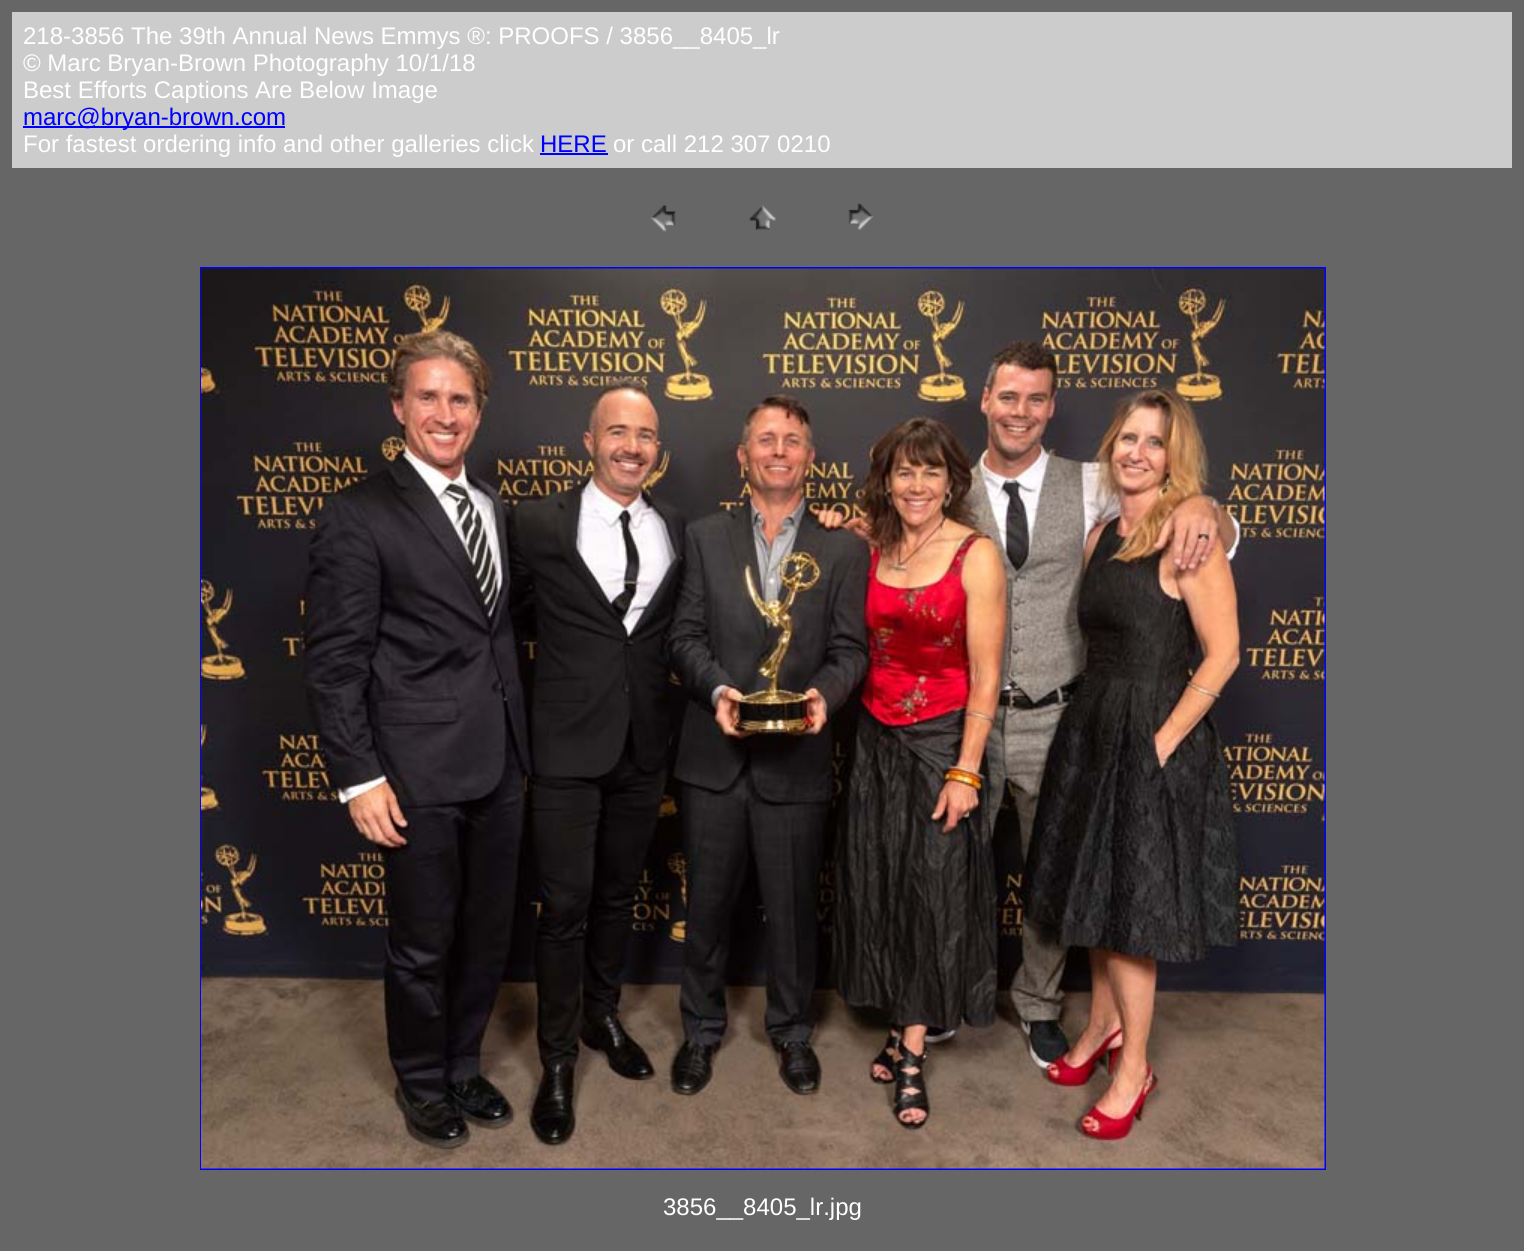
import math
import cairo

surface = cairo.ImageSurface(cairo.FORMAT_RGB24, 1524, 1251)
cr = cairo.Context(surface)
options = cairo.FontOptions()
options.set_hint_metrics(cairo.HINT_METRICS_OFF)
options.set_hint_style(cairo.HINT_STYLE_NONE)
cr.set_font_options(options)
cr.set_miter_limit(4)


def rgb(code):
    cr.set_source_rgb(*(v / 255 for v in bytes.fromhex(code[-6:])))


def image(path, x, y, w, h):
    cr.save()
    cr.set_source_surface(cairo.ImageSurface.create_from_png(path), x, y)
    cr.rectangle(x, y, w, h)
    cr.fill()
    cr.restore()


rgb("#666666")
cr.paint()
for x, y, w, h, color in [
    (12, 12, 1500, 156, "#cccccc"),
    (23, 126, 262, 2, "#0000ff"),
    (540, 153, 68, 2, "#0000ff"),
]:
    rgb(color)
    cr.rectangle(x, y, w, h)
    cr.fill()
image("img/1.png", 650, 205, 26, 27)
image("img/2.png", 749, 205, 27, 25)
image("img/3.png", 848, 203, 26, 27)
cr.rectangle(201, 268, 1124, 901)
cr.stroke()
image("img/4.png", 201, 268, 1124, 901)
cr.select_font_face("Liberation Sans")
cr.set_font_size(24)
rgb("#ffffff")
for x, y, s in [
    (23, 44, "218-3856 The 39th Annual News Emmys ®: PROOFS / 3856__8405_lr"),
    (23, 71, "© Marc Bryan-Brown Photography 10/1/18"),
    (23, 98, "Best Efforts Captions Are Below Image"),
]:
    cr.move_to(x, y)
    cr.show_text(s)
rgb("#0000ff")
cr.move_to(23, 125)
cr.show_text("marc@bryan-brown.com")
rgb("#ffffff")
cr.move_to(23, 152)
cr.show_text("For fastest ordering info and other galleries click")
rgb("#0000ff")
cr.move_to(540, 152)
cr.show_text("HERE")
rgb("#ffffff")
cr.move_to(613, 152)
cr.show_text("or call 212 307 0210")
cr.move_to(663, 1215)
cr.show_text("3856__8405_lr.jpg")
surface.write_to_png("page.png")
